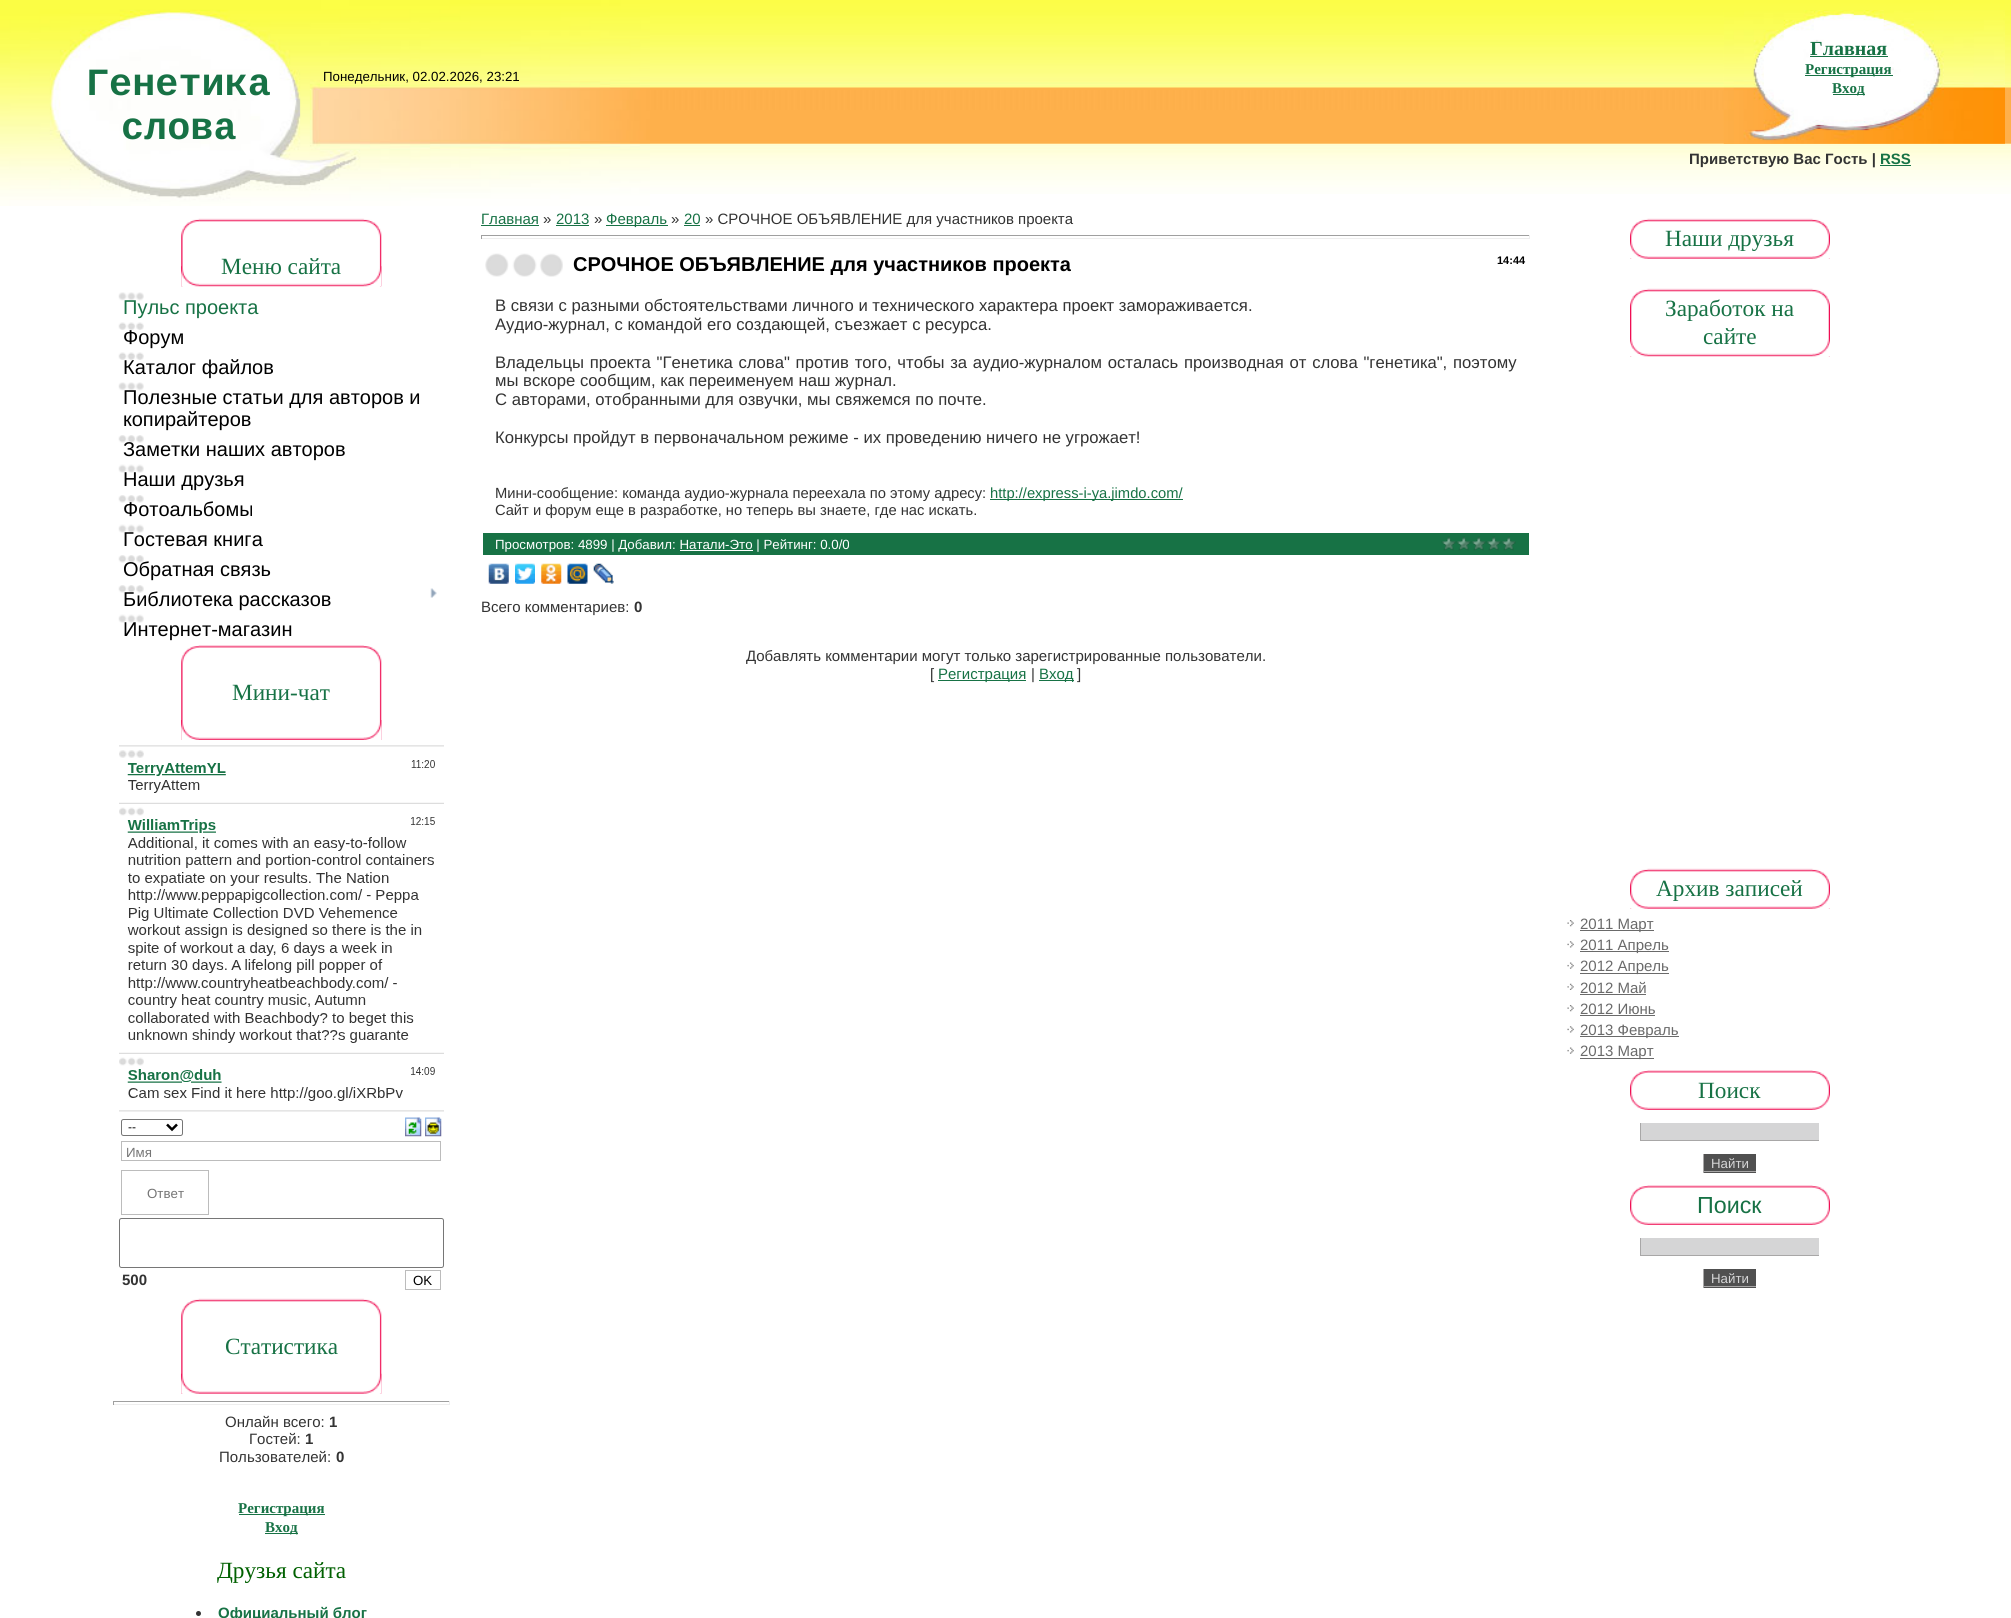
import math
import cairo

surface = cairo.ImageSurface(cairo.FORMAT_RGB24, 2011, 1618)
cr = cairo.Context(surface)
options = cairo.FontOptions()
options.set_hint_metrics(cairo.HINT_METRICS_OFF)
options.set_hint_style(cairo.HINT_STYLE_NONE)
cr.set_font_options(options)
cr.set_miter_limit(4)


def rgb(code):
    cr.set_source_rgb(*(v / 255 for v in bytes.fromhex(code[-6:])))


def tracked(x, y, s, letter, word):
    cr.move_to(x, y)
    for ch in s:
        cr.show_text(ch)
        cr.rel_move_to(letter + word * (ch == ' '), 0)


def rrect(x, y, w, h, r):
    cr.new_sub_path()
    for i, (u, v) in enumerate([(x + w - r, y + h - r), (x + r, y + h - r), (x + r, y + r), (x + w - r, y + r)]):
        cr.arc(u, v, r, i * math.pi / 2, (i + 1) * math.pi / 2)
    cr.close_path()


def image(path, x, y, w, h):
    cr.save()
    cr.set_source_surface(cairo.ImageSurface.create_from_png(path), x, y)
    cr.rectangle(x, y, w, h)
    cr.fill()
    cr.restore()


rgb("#ffffff")
cr.paint()
image("img/1.png", 650, 0, 1361, 194)
image("img/2.png", 0, 0, 650, 206)
image("img/3.png", 1723, 10, 282, 134)
for x, y, w, h, color in [
    (1810, 56, 78, 1, "#177245"),
    (1805, 75, 88, 1, "#177245"),
    (1833, 94, 32, 1, "#177245"),
    (1880, 165, 31, 1, "#177245"),
]:
    rgb(color)
    cr.rectangle(x, y, w, h)
    cr.fill()
image("img/4.png", 181, 218, 201, 69)
image("img/5.png", 181, 266, 201, 21)
image("img/6.png", 118, 292, 26, 9)
image("img/7.png", 118, 322, 26, 8)
image("img/7.png", 118, 352, 26, 8)
image("img/8.png", 118, 382, 26, 9)
image("img/9.png", 118, 435, 26, 8)
image("img/10.png", 118, 464, 26, 9)
image("img/9.png", 118, 495, 26, 8)
image("img/10.png", 118, 524, 26, 9)
image("img/9.png", 118, 555, 26, 8)
image("img/9.png", 118, 585, 26, 8)
image("img/11.png", 430, 588, 7, 10)
image("img/10.png", 118, 614, 26, 9)
image("img/12.png", 181, 645, 201, 95)
image("img/13.png", 181, 720, 201, 20)
image("img/14.png", 119, 745, 325, 367)
rrect(121.5, 1119.5, 61, 16, 2)
rgb("#767676")
cr.set_line_width(1)
cr.stroke()
cr.new_path()
cr.move_to(167, 1124.5)
cr.line_to(172, 1129.5)
cr.line_to(177, 1124.5)
rgb("#000000")
cr.set_line_width(2.5)
cr.stroke()
image("img/15.png", 405, 1117, 17, 20)
image("img/16.png", 425, 1117, 17, 20)
cr.rectangle(121.5, 1141.5, 319, 19)
rgb("#bcbcbc")
cr.set_line_width(1)
cr.stroke()
cr.rectangle(121.5, 1170.5, 87, 44)
cr.stroke()
rrect(119.5, 1218.5, 324, 49, 2)
rgb("#767676")
cr.stroke()
cr.rectangle(405.5, 1270.5, 35, 19)
rgb("#bcbcbc")
cr.stroke()
image("img/17.png", 181, 1298, 201, 96)
image("img/18.png", 181, 1373, 201, 21)
for x, y, w, h, color in [
    (113, 1401, 337, 1, "#9f9f9f"),
    (449, 1401, 1, 4, "#eeeeee"),
    (113, 1404, 337, 1, "#eeeeee"),
    (113, 1401, 1, 4, "#9f9f9f"),
    (239, 1514, 86, 1, "#177245"),
    (265, 1533, 33, 1, "#177245"),
]:
    rgb(color)
    cr.rectangle(x, y, w, h)
    cr.fill()
rgb("#333333")
cr.arc(198.5, 1613.5, 2.5, 0, 2 * math.pi)
cr.fill()
for x, y, w, h, color in [
    (481, 225, 58, 1, "#177245"),
    (556, 225, 33, 1, "#177245"),
    (606, 225, 62, 1, "#177245"),
    (684, 225, 16, 1, "#177245"),
    (481, 235, 1049, 1, "#9f9f9f"),
    (1529, 235, 1, 4, "#eeeeee"),
    (481, 238, 1049, 1, "#eeeeee"),
    (481, 235, 1, 4, "#9f9f9f"),
]:
    rgb(color)
    cr.rectangle(x, y, w, h)
    cr.fill()
image("img/19.png", 485, 253, 78, 24)
rgb("#177245")
cr.rectangle(990, 499, 193, 1)
cr.fill()
cr.rectangle(483, 533, 1046, 22)
cr.fill()
image("img/20.png", 1441, 536, 75, 15)
rgb("#ffffff")
cr.rectangle(680, 550, 73, 1)
cr.fill()
image("img/21.png", 488, 563, 21, 21)
image("img/22.png", 515, 563, 20, 21)
image("img/23.png", 541, 563, 21, 21)
image("img/24.png", 567, 563, 21, 21)
image("img/25.png", 593, 563, 21, 21)
rgb("#177245")
cr.rectangle(938, 680, 88, 1)
cr.fill()
cr.rectangle(1039, 680, 35, 1)
cr.fill()
image("img/26.png", 1630, 218, 200, 41)
image("img/27.png", 1630, 241, 200, 18)
image("img/28.png", 1630, 288, 200, 69)
image("img/29.png", 1630, 339, 200, 18)
image("img/26.png", 1630, 868, 200, 41)
image("img/27.png", 1630, 891, 200, 18)
image("img/30.png", 1567, 920, 7, 7)
rgb("#6a6a6a")
cr.rectangle(1580, 930, 74, 1)
cr.fill()
image("img/31.png", 1567, 941, 7, 7)
cr.rectangle(1580, 951, 89, 1)
cr.fill()
image("img/32.png", 1567, 962, 7, 7)
cr.rectangle(1580, 973, 89, 1)
cr.fill()
image("img/33.png", 1567, 983, 7, 7)
cr.rectangle(1580, 994, 66, 1)
cr.fill()
image("img/30.png", 1567, 1005, 7, 7)
cr.rectangle(1580, 1015, 75, 1)
cr.fill()
image("img/31.png", 1567, 1026, 7, 7)
cr.rectangle(1580, 1036, 99, 1)
cr.fill()
image("img/32.png", 1567, 1047, 7, 7)
cr.rectangle(1580, 1058, 74, 1)
cr.fill()
image("img/34.png", 1630, 1070, 200, 22)
image("img/35.png", 1630, 1092, 200, 18)
for x, y, w, h, color in [
    (1641, 1123, 178, 17, "#d5d5d6"),
    (1640, 1140, 179, 1, "#a8a7a7"),
    (1640, 1123, 1, 18, "#a8a7a7"),
    (1704, 1154, 52, 19, "#505050"),
    (1703, 1171, 53, 1, "#a8a7a7"),
    (1703, 1154, 1, 19, "#a8a7a7"),
]:
    rgb(color)
    cr.rectangle(x, y, w, h)
    cr.fill()
image("img/34.png", 1630, 1185, 200, 22)
image("img/35.png", 1630, 1207, 200, 18)
for x, y, w, h, color in [
    (1641, 1238, 178, 17, "#d5d5d6"),
    (1640, 1255, 179, 1, "#a8a7a7"),
    (1640, 1238, 1, 18, "#a8a7a7"),
    (1704, 1269, 52, 19, "#505050"),
    (1703, 1286, 53, 1, "#a8a7a7"),
    (1703, 1269, 1, 19, "#a8a7a7"),
]:
    rgb(color)
    cr.rectangle(x, y, w, h)
    cr.fill()
cr.select_font_face("Liberation Mono", cairo.FONT_SLANT_NORMAL, cairo.FONT_WEIGHT_BOLD)
cr.set_font_size(38.5)
rgb("#177245")
cr.move_to(86, 95)
cr.show_text("Генетика")
cr.move_to(121, 139)
cr.show_text("слова")
cr.select_font_face("Liberation Sans")
cr.set_font_size(13.3)
rgb("#000000")
cr.move_to(323, 81)
cr.show_text("Понедельник, 02.02.2026, 23:21")
cr.select_font_face("Liberation Serif", cairo.FONT_SLANT_NORMAL, cairo.FONT_WEIGHT_BOLD)
cr.set_font_size(20)
rgb("#177245")
cr.move_to(1810, 55)
cr.show_text("Главная")
cr.set_font_size(15)
cr.move_to(1805, 74)
cr.show_text("Регистрация")
cr.move_to(1832, 93)
cr.show_text("Вход")
cr.select_font_face("Liberation Sans", cairo.FONT_SLANT_NORMAL, cairo.FONT_WEIGHT_BOLD)
rgb("#333333")
cr.move_to(1689, 164)
cr.show_text("Приветствую Вас Гость |")
rgb("#177245")
cr.move_to(1880, 164)
cr.show_text("RSS")
cr.select_font_face("Liberation Serif")
cr.set_font_size(23.25)
cr.move_to(221, 274)
cr.show_text("Меню сайта")
cr.select_font_face("Liberation Sans")
cr.set_font_size(20)
cr.move_to(123, 314)
cr.show_text("Пульс проекта")
rgb("#000000")
for x, y, s in [
    (123, 344, "Форум"),
    (123, 374, "Каталог файлов"),
    (123, 404, "Полезные статьи для авторов и"),
    (123, 426, "копирайтеров"),
    (123, 456, "Заметки наших авторов"),
    (123, 486, "Наши друзья"),
    (123, 516, "Фотоальбомы"),
    (123, 546, "Гостевая книга"),
    (123, 576, "Обратная связь"),
    (123, 606, "Библиотека рассказов"),
    (123, 636, "Интернет-магазин"),
]:
    cr.move_to(x, y)
    cr.show_text(s)
cr.select_font_face("Liberation Serif")
cr.set_font_size(23.25)
rgb("#177245")
cr.move_to(232, 700)
cr.show_text("Мини-чат")
cr.select_font_face("Liberation Sans")
cr.set_font_size(12)
rgb("#000000")
cr.move_to(128, 1131)
cr.show_text("--")
cr.set_font_size(13.3)
rgb("#757575")
cr.move_to(126, 1157)
cr.show_text("Имя")
cr.move_to(147, 1198)
cr.show_text("Ответ")
cr.select_font_face("Liberation Sans", cairo.FONT_SLANT_NORMAL, cairo.FONT_WEIGHT_BOLD)
cr.set_font_size(15)
rgb("#333333")
cr.move_to(122, 1285)
cr.show_text("500")
cr.select_font_face("Liberation Sans")
cr.set_font_size(13.3)
rgb("#000000")
cr.move_to(413, 1285)
cr.show_text("OK")
cr.select_font_face("Liberation Serif")
cr.set_font_size(23.25)
rgb("#177245")
cr.move_to(225, 1354)
cr.show_text("Статистика")
cr.select_font_face("Liberation Sans")
cr.set_font_size(15)
rgb("#333333")
cr.move_to(225, 1427)
cr.show_text("Онлайн всего:")
cr.select_font_face("Liberation Sans", cairo.FONT_SLANT_NORMAL, cairo.FONT_WEIGHT_BOLD)
cr.move_to(329, 1427)
cr.show_text("1")
cr.select_font_face("Liberation Sans")
cr.move_to(249, 1444)
cr.show_text("Гостей:")
cr.select_font_face("Liberation Sans", cairo.FONT_SLANT_NORMAL, cairo.FONT_WEIGHT_BOLD)
cr.move_to(305, 1444)
cr.show_text("1")
cr.select_font_face("Liberation Sans")
cr.move_to(219, 1462)
cr.show_text("Пользователей:")
cr.select_font_face("Liberation Sans", cairo.FONT_SLANT_NORMAL, cairo.FONT_WEIGHT_BOLD)
cr.move_to(336, 1462)
cr.show_text("0")
cr.select_font_face("Liberation Serif", cairo.FONT_SLANT_NORMAL, cairo.FONT_WEIGHT_BOLD)
rgb("#177245")
cr.move_to(238, 1513)
cr.show_text("Регистрация")
cr.move_to(265, 1532)
cr.show_text("Вход")
cr.select_font_face("Liberation Serif")
cr.set_font_size(23.25)
rgb("#006000")
cr.move_to(217, 1578)
cr.show_text("Друзья сайта")
cr.select_font_face("Liberation Sans", cairo.FONT_SLANT_NORMAL, cairo.FONT_WEIGHT_BOLD)
cr.set_font_size(15)
rgb("#177245")
cr.move_to(218, 1618)
cr.show_text("Официальный блог")
cr.select_font_face("Liberation Sans")
cr.move_to(481, 224)
cr.show_text("Главная")
rgb("#333333")
cr.move_to(543, 224)
cr.show_text("»")
rgb("#177245")
cr.move_to(556, 224)
cr.show_text("2013")
rgb("#333333")
cr.move_to(594, 224)
cr.show_text("»")
rgb("#177245")
cr.move_to(606, 224)
cr.show_text("Февраль")
rgb("#333333")
cr.move_to(671, 224)
cr.show_text("»")
rgb("#177245")
cr.move_to(684, 224)
cr.show_text("20")
rgb("#333333")
cr.move_to(705, 224)
cr.show_text("» СРОЧНОЕ ОБЪЯВЛЕНИЕ для участников проекта")
cr.select_font_face("Liberation Sans", cairo.FONT_SLANT_NORMAL, cairo.FONT_WEIGHT_BOLD)
cr.set_font_size(20)
rgb("#000000")
cr.move_to(573, 271)
cr.show_text("СРОЧНОЕ ОБЪЯВЛЕНИЕ для участников проекта")
cr.set_font_size(11)
cr.move_to(1497, 264)
cr.show_text("14:44")
cr.select_font_face("Liberation Sans")
cr.set_font_size(16.67)
rgb("#333333")
cr.move_to(495, 311)
cr.show_text("В связи с разными обстоятельствами личного и технического характера проект замораживается.")
cr.move_to(495, 330)
cr.show_text("Аудио-журнал, с командой его создающей, съезжает с ресурса.")
tracked(495, 368, "Владельцы проекта \"Генетика слова\" против того, чтобы за аудио-журналом осталась производная от слова \"генетика\", поэтому", 0, 1.1)
for x, y, s in [
    (495, 386, "мы вскоре сообщим, как переименуем наш журнал."),
    (495, 405, "С авторами, отобранными для озвучки, мы свяжемся по почте."),
    (495, 443, "Конкурсы пройдут в первоначальном режиме - их проведению ничего не угрожает!"),
]:
    cr.move_to(x, y)
    cr.show_text(s)
cr.set_font_size(14.75)
cr.move_to(495, 498)
cr.show_text("Мини-сообщение: команда аудио-журнала переехала по этому адресу:")
rgb("#177245")
cr.move_to(990, 498)
cr.show_text("http://express-i-ya.jimdo.com/")
rgb("#ffffff")
cr.rectangle(1183, 484, 1, 4)
cr.fill()
rgb("#333333")
cr.move_to(495, 515)
cr.show_text("Сайт и форум еще в разработке, но теперь вы знаете, где нас искать.")
rgb("#ffffff")
cr.rectangle(693, 501, 284, 1)
cr.fill()
cr.set_font_size(13.3)
cr.move_to(495, 549)
cr.show_text("Просмотров: 4899 | Добавил: Натали-Это | Рейтинг: 0.0/0")
cr.set_font_size(15)
rgb("#333333")
cr.move_to(481, 612)
cr.show_text("Всего комментариев:")
cr.select_font_face("Liberation Sans", cairo.FONT_SLANT_NORMAL, cairo.FONT_WEIGHT_BOLD)
cr.move_to(634, 612)
cr.show_text("0")
cr.select_font_face("Liberation Sans")
cr.move_to(746, 661)
cr.show_text("Добавлять комментарии могут только зарегистрированные пользователи.")
cr.move_to(930, 679)
cr.show_text("[")
rgb("#177245")
cr.move_to(938, 679)
cr.show_text("Регистрация")
rgb("#333333")
cr.move_to(1031, 679)
cr.show_text("|")
rgb("#177245")
cr.move_to(1039, 679)
cr.show_text("Вход")
rgb("#333333")
cr.move_to(1077, 679)
cr.show_text("]")
cr.select_font_face("Liberation Serif")
cr.set_font_size(23.25)
rgb("#177245")
for x, y, s in [
    (1665, 246, "Наши друзья"),
    (1665, 316, "Заработок на"),
    (1703, 344, "сайте"),
    (1656, 896, "Архив записей"),
]:
    cr.move_to(x, y)
    cr.show_text(s)
cr.select_font_face("Liberation Sans")
cr.set_font_size(15)
rgb("#6a6a6a")
for x, y, s in [
    (1580, 929, "2011 Март"),
    (1580, 950, "2011 Апрель"),
    (1580, 971, "2012 Апрель"),
    (1580, 993, "2012 Май"),
    (1580, 1014, "2012 Июнь"),
    (1580, 1035, "2013 Февраль"),
    (1580, 1056, "2013 Март"),
]:
    cr.move_to(x, y)
    cr.show_text(s)
cr.select_font_face("Liberation Serif")
cr.set_font_size(23.25)
rgb("#177245")
cr.move_to(1698, 1098)
cr.show_text("Поиск")
cr.select_font_face("Liberation Sans")
cr.set_font_size(13.3)
rgb("#d5d5d6")
cr.move_to(1711, 1168)
cr.show_text("Найти")
cr.set_font_size(23.25)
rgb("#177245")
cr.move_to(1697, 1213)
cr.show_text("Поиск")
cr.set_font_size(13.3)
rgb("#d5d5d6")
cr.move_to(1711, 1283)
cr.show_text("Найти")
surface.write_to_png("page.png")
